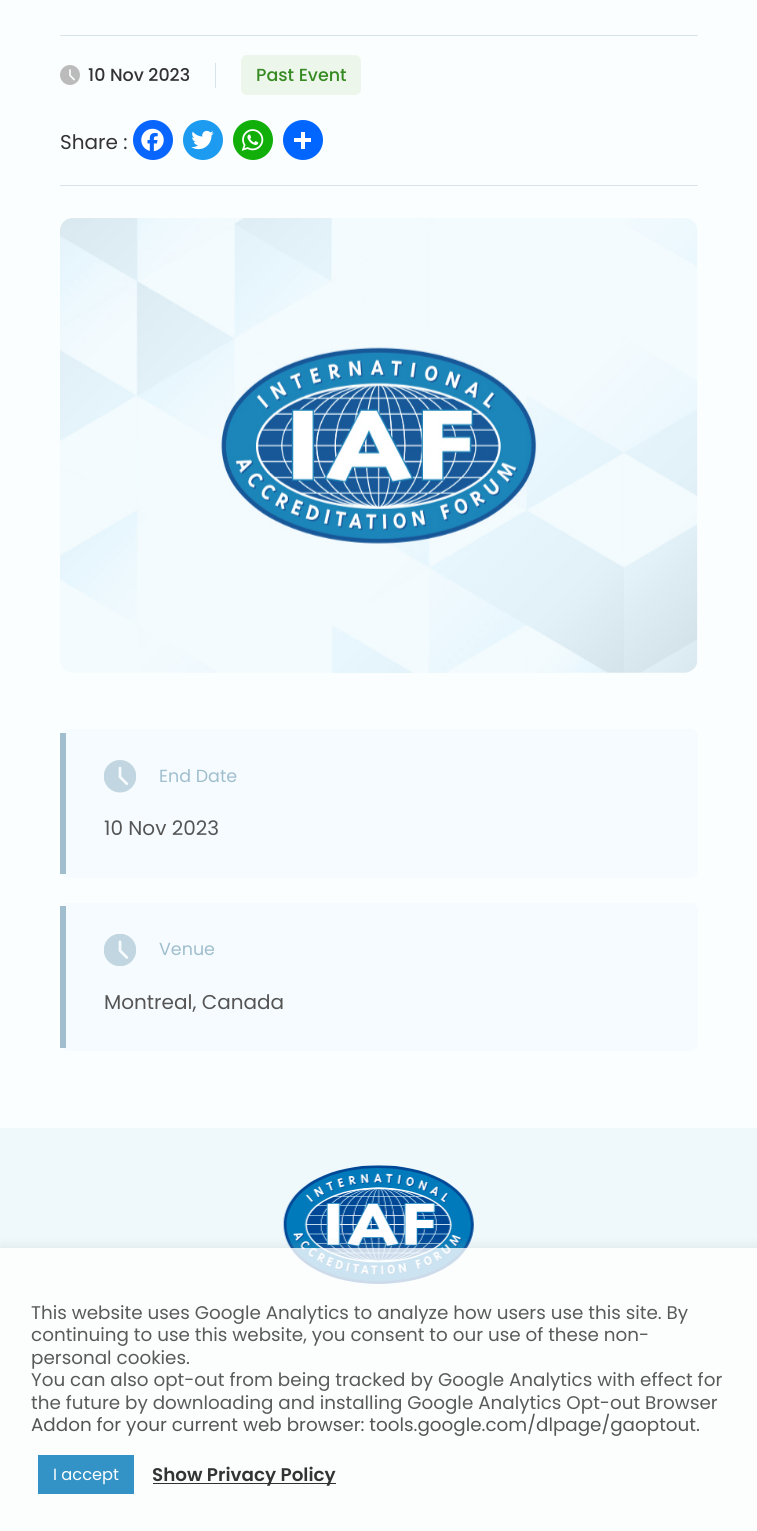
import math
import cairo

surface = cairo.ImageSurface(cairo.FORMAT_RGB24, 757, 1531)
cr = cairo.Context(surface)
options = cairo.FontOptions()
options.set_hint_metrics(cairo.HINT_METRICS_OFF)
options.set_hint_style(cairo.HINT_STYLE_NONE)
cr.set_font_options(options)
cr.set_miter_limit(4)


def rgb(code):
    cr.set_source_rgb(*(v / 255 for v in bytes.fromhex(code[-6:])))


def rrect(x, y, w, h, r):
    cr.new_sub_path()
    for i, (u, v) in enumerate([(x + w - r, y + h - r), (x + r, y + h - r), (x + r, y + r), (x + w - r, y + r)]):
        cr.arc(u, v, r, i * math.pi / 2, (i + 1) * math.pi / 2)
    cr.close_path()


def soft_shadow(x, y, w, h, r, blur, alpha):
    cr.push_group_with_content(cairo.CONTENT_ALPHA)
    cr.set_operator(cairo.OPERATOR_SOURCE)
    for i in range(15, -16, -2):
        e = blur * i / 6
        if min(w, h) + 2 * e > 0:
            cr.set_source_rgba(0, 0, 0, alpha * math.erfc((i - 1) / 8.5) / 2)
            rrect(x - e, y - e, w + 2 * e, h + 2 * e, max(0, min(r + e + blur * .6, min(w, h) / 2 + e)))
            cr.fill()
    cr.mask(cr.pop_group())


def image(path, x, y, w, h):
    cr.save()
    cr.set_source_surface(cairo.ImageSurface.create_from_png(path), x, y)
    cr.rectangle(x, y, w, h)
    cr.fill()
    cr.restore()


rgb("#fbfeff")
cr.paint()
rgb("#d7e4eb")
rrect(60, 35, 638, 1, 0.5)
cr.fill()
image("img/1.png", 60, 65, 20, 20)
cr.rectangle(215, 63, 1, 25)
cr.fill()
rgb("#edf6eb")
rrect(241, 55, 120, 40, 6)
cr.fill()
rgb("#0866ff")
cr.arc(153, 140, 20, 0, 2 * math.pi)
cr.fill()
image("img/2.png", 141, 128, 23, 24)
rgb("#1d9bf0")
cr.arc(203, 140, 20, 0, 2 * math.pi)
cr.fill()
image("img/3.png", 191, 130, 23, 20)
rgb("#12af0a")
cr.arc(253, 140, 20, 0, 2 * math.pi)
cr.fill()
image("img/4.png", 241, 129, 23, 22)
rgb("#0166ff")
cr.arc(303, 140, 20, 0, 2 * math.pi)
cr.fill()
rgb("#ffffff")
cr.rectangle(301, 132, 4, 17)
cr.fill()
cr.rectangle(294, 138, 17, 4)
cr.fill()
rgb("#d7e4eb")
rrect(60, 185, 638, 1, 0.5)
cr.fill()
image("img/5.png", 60, 218, 638, 455)
rgb("#f5fbfe")
rrect(60, 729, 638, 149, 8)
cr.fill()
rgb("#a0bece")
cr.rectangle(60, 733, 6, 141)
cr.fill()
image("img/6.png", 104, 760, 32, 33)
rgb("#f5fbfe")
rrect(60, 903, 638, 148, 8)
cr.fill()
rgb("#a0bece")
cr.rectangle(60, 906, 6, 142)
cr.fill()
image("img/7.png", 104, 934, 32, 32)
rgb("#eff9fc")
cr.rectangle(0, 1128, 757, 403)
cr.fill()
image("img/8.png", 283, 1165, 191, 119)
cr.save()
cr.rectangle(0, 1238, 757, 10)
cr.clip()
rgb("#acabab")
soft_shadow(0, 1246, 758, 284, 0, 6, 0.24)
cr.restore()
cr.set_source_rgba(1, 1, 1, 0.8)
cr.rectangle(0, 1248, 757, 283)
cr.fill()
rgb("#3393c7")
cr.rectangle(38, 1455, 96, 39)
cr.fill()
rgb("#303232")
cr.rectangle(153, 1483, 183, 1)
cr.fill()
cr.select_font_face("Poppins Medium")
cr.set_font_size(17.5)
rgb("#333333")
cr.move_to(88, 81)
cr.show_text("10 Nov 2023")
rgb("#368b22")
cr.move_to(256, 81)
cr.show_text("Past Event")
cr.select_font_face("Poppins")
cr.set_font_size(20)
rgb("#333333")
cr.move_to(60, 149)
cr.show_text("Share :")
cr.set_font_size(17.5)
rgb("#a0bece")
cr.move_to(159, 782)
cr.show_text("End Date")
cr.set_font_size(20)
rgb("#555555")
cr.move_to(104, 835)
cr.show_text("10 Nov 2023")
cr.set_font_size(17.5)
rgb("#a0bece")
cr.move_to(159, 955)
cr.show_text("Venue")
cr.set_font_size(20)
rgb("#555555")
cr.move_to(104, 1009)
cr.show_text("Montreal, Canada")
cr.set_font_size(18.35)
rgb("#595b5b")
for x, y, s in [
    (31, 1319, "This website uses Google Analytics to analyze how users use this site. By"),
    (31, 1341, "continuing to use this website, you consent to our use of these non-"),
    (31, 1364, "personal cookies."),
    (31, 1386, "You can also opt-out from being tracked by Google Analytics with effect for"),
    (31, 1409, "the future by downloading and installing Google Analytics Opt-out Browser"),
]:
    cr.move_to(x, y)
    cr.show_text(s)
rgb("#555555")
cr.move_to(31, 1431)
cr.show_text("Addon for your current web browser: tools.google.com/dlpage/gaoptout.")
cr.set_font_size(16.25)
rgb("#fcfefe")
cr.move_to(53, 1480)
cr.show_text("I accept")
cr.select_font_face("Poppins SemiBold")
cr.set_font_size(18.35)
rgb("#333333")
cr.move_to(152, 1481)
cr.show_text("Show Privacy Policy")
surface.write_to_png("page.png")
